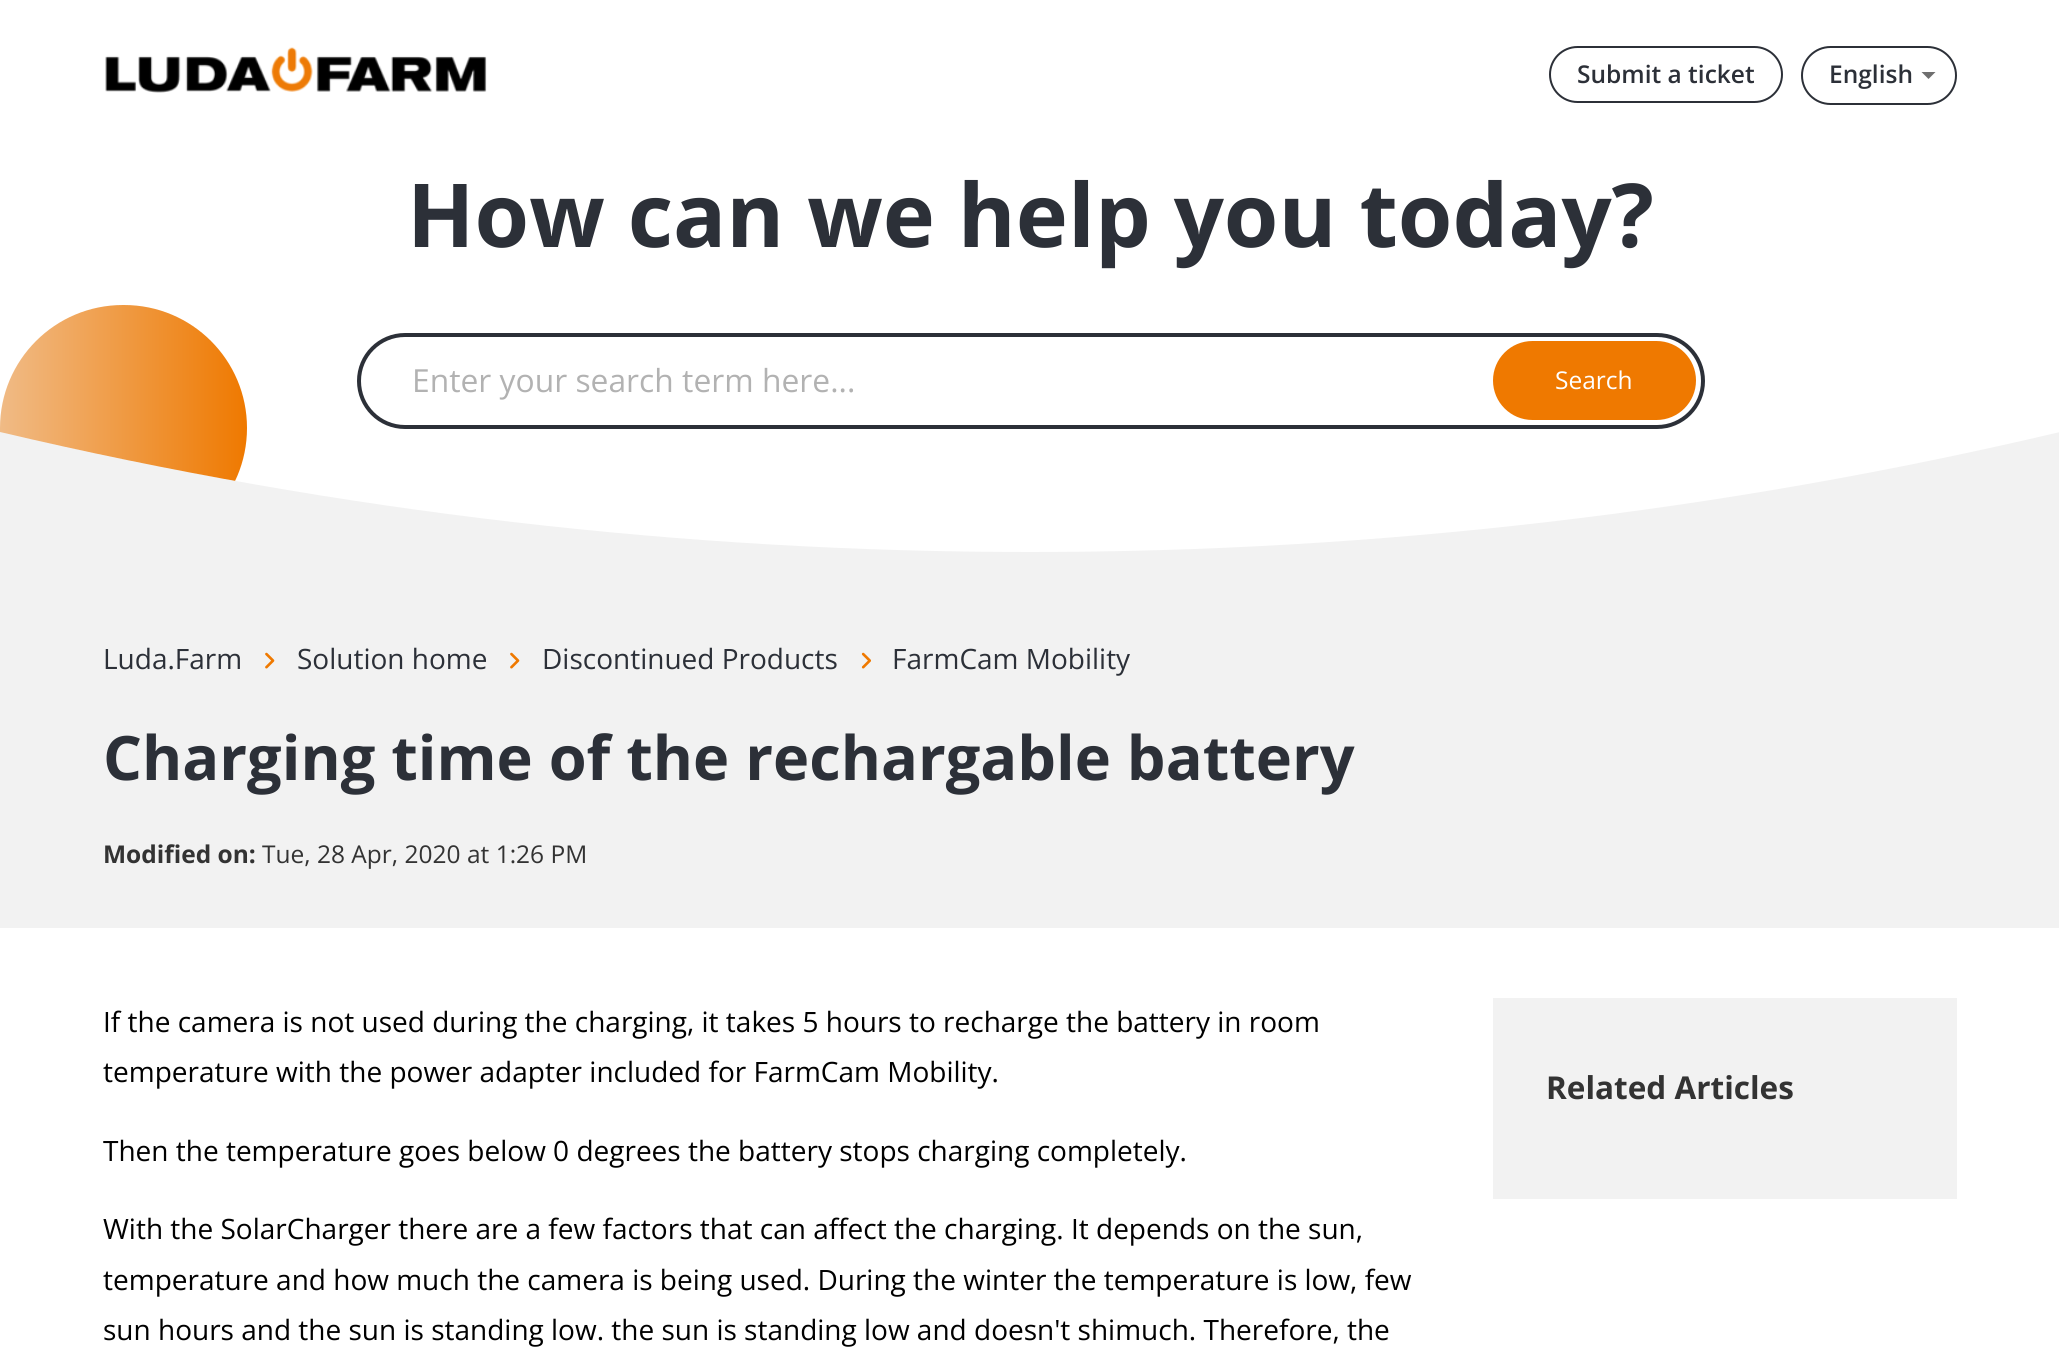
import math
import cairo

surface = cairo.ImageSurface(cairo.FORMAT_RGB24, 2059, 1365)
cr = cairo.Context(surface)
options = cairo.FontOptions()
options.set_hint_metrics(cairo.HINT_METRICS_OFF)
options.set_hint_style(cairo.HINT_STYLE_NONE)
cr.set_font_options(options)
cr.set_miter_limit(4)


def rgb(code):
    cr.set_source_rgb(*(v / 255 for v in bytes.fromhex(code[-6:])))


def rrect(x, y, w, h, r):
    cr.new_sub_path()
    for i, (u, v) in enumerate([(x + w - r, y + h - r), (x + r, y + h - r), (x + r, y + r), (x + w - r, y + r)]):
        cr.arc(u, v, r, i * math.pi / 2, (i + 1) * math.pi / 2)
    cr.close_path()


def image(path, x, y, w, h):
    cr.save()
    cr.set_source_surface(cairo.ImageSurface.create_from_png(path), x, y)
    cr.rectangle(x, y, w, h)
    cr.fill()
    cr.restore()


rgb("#ffffff")
cr.paint()
image("img/1.png", 105, 47, 382, 46)
rrect(1550, 47, 232, 55, 27.5)
rgb("#2c3038")
cr.stroke()
rrect(1802, 47, 154, 57, 28.5)
cr.stroke()
rgb("#6f6f6f")
cr.new_path()
cr.move_to(1921.5, 72)
cr.line_to(1935.5, 72)
cr.line_to(1928.5, 79)
cr.close_path()
cr.fill()
gradient = cairo.LinearGradient(0, 428, 247, 428)
gradient.add_color_stop_rgba(0, 0.941, 0.733, 0.525, 1)
gradient.add_color_stop_rgba(1, 0.937, 0.475, 0, 1)
cr.set_source(gradient)
cr.new_path()
cr.move_to(123, 305)
cr.line_to(124, 305)
cr.curve_to(192, 305, 247, 360, 247, 428)
cr.curve_to(247, 496, 192, 551, 124, 551)
cr.line_to(0, 551)
cr.line_to(0, 428)
cr.curve_to(0, 360, 55, 305, 123, 305)
cr.close_path()
cr.fill()
rrect(359, 335, 1344, 92, 46)
rgb("#2c3038")
cr.set_line_width(4)
cr.stroke()
rgb("#ef7900")
rrect(1494, 342, 201, 77, 38.5)
cr.fill_preserve()
cr.set_line_width(2)
cr.stroke()
rgb("#f2f2f2")
cr.new_path()
cr.move_to(0, 432)
cr.curve_to(678, 592, 1382, 592, 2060, 432)
cr.line_to(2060, 555)
cr.line_to(0, 555)
cr.close_path()
cr.fill()
cr.rectangle(0, 555, 2059, 373)
cr.fill()
image("img/2.png", 265, 652, 10, 17)
image("img/2.png", 510, 652, 10, 17)
image("img/3.png", 861, 652, 10, 17)
cr.rectangle(1493, 998, 464, 201)
cr.fill()
cr.select_font_face("Open Sans SemiBold")
cr.set_font_size(24.5)
rgb("#2c3038")
cr.move_to(1577, 83)
cr.show_text("Submit a ticket")
cr.move_to(1829, 83)
cr.show_text("English")
cr.select_font_face("Open Sans", cairo.FONT_SLANT_NORMAL, cairo.FONT_WEIGHT_BOLD)
cr.set_font_size(88.25)
cr.move_to(407, 247)
cr.show_text("How can we help you today?")
cr.select_font_face("Open Sans")
cr.set_font_size(31.8)
rgb("#b2b2b2")
cr.move_to(412, 392)
cr.show_text("Enter your search term here...")
cr.set_font_size(24.5)
rgb("#ffffff")
cr.move_to(1555, 389)
cr.show_text("Search")
cr.set_font_size(28)
rgb("#2c3038")
for x, y, s in [
    (103, 669, "Luda.Farm"),
    (297, 669, "Solution home"),
    (542, 669, "Discontinued Products"),
    (892, 669, "FarmCam Mobility"),
]:
    cr.move_to(x, y)
    cr.show_text(s)
cr.select_font_face("Open Sans", cairo.FONT_SLANT_NORMAL, cairo.FONT_WEIGHT_BOLD)
cr.set_font_size(61.25)
cr.move_to(103, 780)
cr.show_text("Charging time of the rechargable battery")
cr.set_font_size(24.5)
rgb("#333333")
cr.move_to(103, 863)
cr.show_text("Modified on:")
cr.select_font_face("Open Sans")
cr.move_to(262, 863)
cr.show_text("Tue, 28 Apr, 2020 at 1:26 PM")
cr.set_font_size(28)
rgb("#000000")
for x, y, s in [
    (103, 1032, "If the camera is not used during the charging, it takes 5 hours to recharge the battery in room"),
    (103, 1082, "temperature with the power adapter included for FarmCam Mobility."),
    (103, 1161, "Then the temperature goes below 0 degrees the battery stops charging completely."),
    (103, 1239, "With the SolarCharger there are a few factors that can affect the charging. It depends on the sun,"),
    (103, 1290, "temperature and how much the camera is being used. During the winter the temperature is low, few"),
    (103, 1340, "sun hours and the sun is standing low. the sun is standing low and doesn't shimuch. Therefore, the"),
]:
    cr.move_to(x, y)
    cr.show_text(s)
cr.select_font_face("Open Sans", cairo.FONT_SLANT_NORMAL, cairo.FONT_WEIGHT_BOLD)
cr.set_font_size(31.5)
rgb("#333333")
cr.move_to(1546, 1099)
cr.show_text("Related Articles")
surface.write_to_png("page.png")
